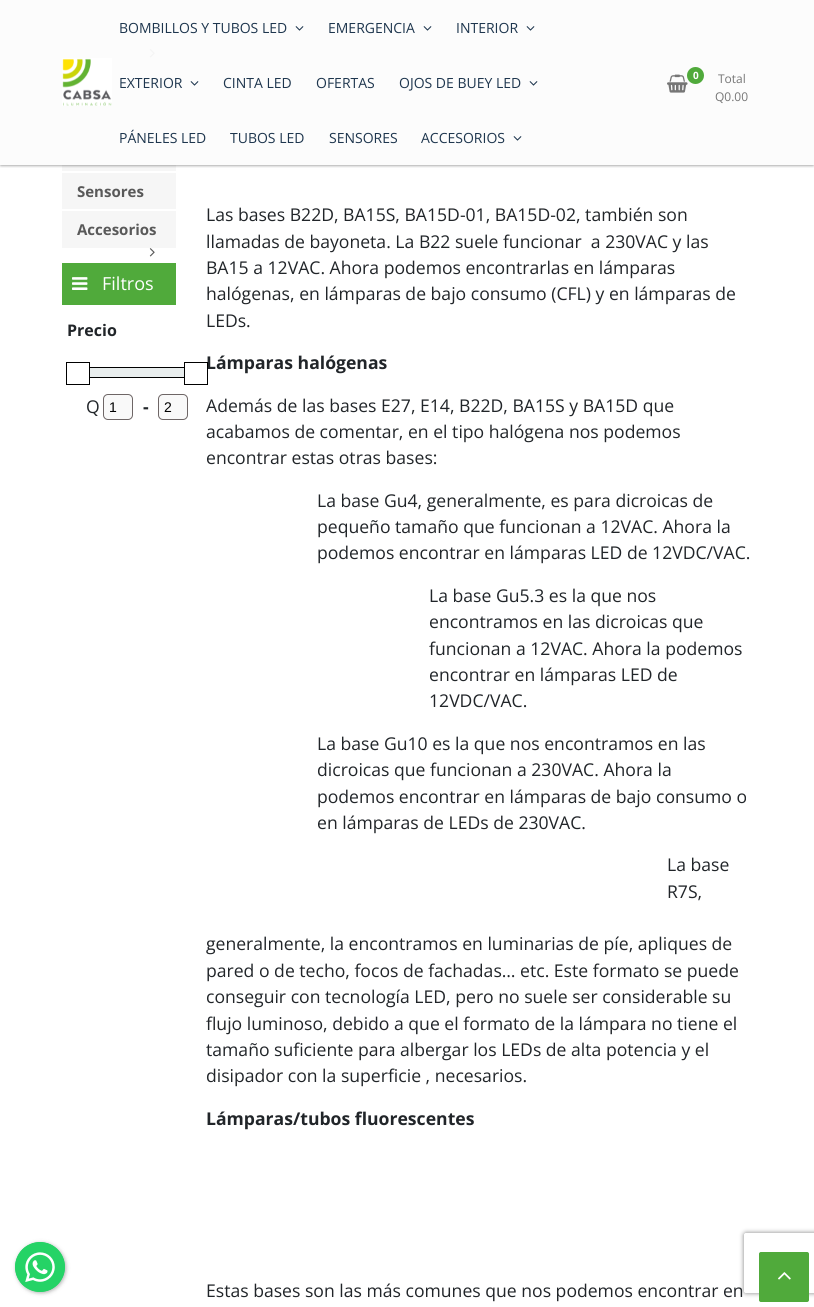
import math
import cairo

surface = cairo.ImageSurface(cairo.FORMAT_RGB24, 814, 1307)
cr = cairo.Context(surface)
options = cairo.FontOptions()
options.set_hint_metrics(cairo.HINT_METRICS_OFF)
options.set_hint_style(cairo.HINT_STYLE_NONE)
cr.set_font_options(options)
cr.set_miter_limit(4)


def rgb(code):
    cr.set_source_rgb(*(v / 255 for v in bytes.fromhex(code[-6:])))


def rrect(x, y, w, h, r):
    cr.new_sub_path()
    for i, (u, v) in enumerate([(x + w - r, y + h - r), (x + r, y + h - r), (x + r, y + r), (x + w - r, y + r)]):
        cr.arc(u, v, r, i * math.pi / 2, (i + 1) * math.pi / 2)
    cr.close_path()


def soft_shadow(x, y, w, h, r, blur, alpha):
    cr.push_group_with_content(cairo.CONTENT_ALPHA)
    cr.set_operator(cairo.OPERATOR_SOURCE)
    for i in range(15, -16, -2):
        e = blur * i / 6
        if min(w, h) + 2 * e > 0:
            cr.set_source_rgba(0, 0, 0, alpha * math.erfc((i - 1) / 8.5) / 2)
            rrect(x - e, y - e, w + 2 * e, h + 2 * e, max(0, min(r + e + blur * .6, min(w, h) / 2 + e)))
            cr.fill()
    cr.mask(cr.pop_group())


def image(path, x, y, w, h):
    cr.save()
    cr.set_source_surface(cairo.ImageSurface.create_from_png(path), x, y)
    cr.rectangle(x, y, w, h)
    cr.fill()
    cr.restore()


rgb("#ffffff")
cr.paint()
rgb("#fcfcfc")
cr.rectangle(0, 0, 814, 165)
cr.fill()
rgb("#3c3c3c")
soft_shadow(16, 1243, 50, 50, 25, 2, 0.4)
rgb("#25d366")
cr.arc(40, 1267, 25, 0, 2 * math.pi)
cr.fill()
image("img/1.png", 15, 1242, 50, 50)
image("img/6.png", 149, 49, 6, 9)
rgb("#f6f6f6")
cr.rectangle(62, 165, 114, 6)
cr.fill()
cr.save()
cr.rectangle(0, 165, 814, 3)
cr.clip()
rgb("#000000")
soft_shadow(1, 1, 812, 163, 0, 2, 1)
cr.restore()
image("img/2.png", 62, 58, 50, 48)
image("img/3.png", 295, 26, 9, 5)
image("img/3.png", 423, 26, 9, 5)
image("img/4.png", 526, 26, 9, 5)
image("img/3.png", 190, 81, 9, 5)
image("img/3.png", 529, 81, 9, 5)
image("img/3.png", 513, 136, 9, 5)
image("img/5.png", 667, 74, 21, 19)
rgb("#50aa3b")
cr.arc(695.5, 75.5, 8.5, 0, 2 * math.pi)
cr.fill()
rgb("#f6f6f6")
cr.rectangle(62, 173, 114, 36)
cr.fill()
cr.rectangle(62, 211, 114, 37)
cr.fill()
image("img/7.png", 149, 248, 6, 9)
rgb("#50aa3b")
cr.rectangle(62, 263, 114, 42)
cr.fill()
image("img/8.png", 72, 277, 16, 13)
cr.rectangle(77.5, 367.5, 119, 10)
rgb("#000000")
cr.set_line_width(1)
cr.stroke()
rgb("#ffffff")
cr.rectangle(77, 367, 12, 11)
cr.fill()
cr.rectangle(66.5, 362.5, 23, 22)
rgb("#000000")
cr.stroke()
rgb("#e8eded")
cr.rectangle(90, 368, 94, 9)
cr.fill()
rgb("#f9f9f9")
rrect(103.5, 394.5, 29, 25, 4.5)
cr.fill_preserve()
rgb("#6e6666")
cr.stroke()
rgb("#f9f9f9")
rrect(158.5, 394.5, 29, 25, 4.5)
cr.fill_preserve()
rgb("#6e6666")
cr.stroke()
rgb("#ffffff")
cr.rectangle(185, 367, 12, 11)
cr.fill()
cr.save()
cr.set_fill_rule(cairo.FILL_RULE_EVEN_ODD)
cr.new_path()
cr.move_to(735, 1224)
cr.line_to(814, 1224)
cr.line_to(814, 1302)
cr.line_to(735, 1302)
cr.close_path()
cr.move_to(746, 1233)
cr.line_to(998, 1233)
cr.curve_to(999, 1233, 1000, 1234, 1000, 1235)
cr.line_to(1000, 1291)
cr.curve_to(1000, 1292, 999, 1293, 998, 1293)
cr.line_to(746, 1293)
cr.curve_to(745, 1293, 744, 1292, 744, 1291)
cr.line_to(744, 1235)
cr.curve_to(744, 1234, 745, 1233, 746, 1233)
cr.close_path()
cr.clip()
rgb("#808080")
soft_shadow(744, 1233, 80, 60, 2, 2.5, 1)
cr.restore()
rgb("#50aa3b")
rrect(759.5, 1252.5, 49, 49, 1.5)
cr.fill_preserve()
cr.stroke()
image("img/9.png", 778, 1272, 13, 8)
cr.select_font_face("Open Sans")
cr.set_font_size(14)
rgb("#1e364e")
for x, y, s in [
    (119, 33, "BOMBILLOS Y TUBOS LED"),
    (328, 33, "EMERGENCIA"),
    (456, 33, "INTERIOR"),
    (119, 88, "EXTERIOR"),
    (223, 88, "CINTA LED"),
    (316, 88, "OFERTAS"),
    (399, 88, "OJOS DE BUEY LED"),
    (119, 143, "PÁNELES LED"),
    (230, 143, "TUBOS LED"),
    (329, 143, "SENSORES"),
    (421, 143, "ACCESORIOS"),
]:
    cr.move_to(x, y)
    cr.show_text(s)
cr.select_font_face("Open Sans", cairo.FONT_SLANT_NORMAL, cairo.FONT_WEIGHT_BOLD)
cr.set_font_size(10)
rgb("#ffffff")
cr.move_to(693, 79)
cr.show_text("0")
cr.select_font_face("Open Sans")
cr.set_font_size(12)
rgb("#767676")
cr.move_to(718, 83)
cr.show_text("Total")
cr.move_to(715, 101)
cr.show_text("Q0.00")
cr.select_font_face("Open Sans", cairo.FONT_SLANT_NORMAL, cairo.FONT_WEIGHT_BOLD)
cr.set_font_size(15)
rgb("#595959")
cr.move_to(77, 197)
cr.show_text("Sensores")
cr.move_to(77, 235)
cr.show_text("Accesorios")
cr.select_font_face("Open Sans")
cr.set_font_size(18)
rgb("#ffffff")
cr.move_to(102, 290)
cr.show_text("Filtros")
cr.select_font_face("Open Sans", cairo.FONT_SLANT_NORMAL, cairo.FONT_WEIGHT_BOLD)
cr.set_font_size(16)
rgb("#212529")
cr.move_to(67, 336)
cr.show_text("Precio")
cr.select_font_face("Open Sans")
cr.set_font_size(17.6)
cr.move_to(86, 413)
cr.show_text("Q")
cr.select_font_face("Liberation Sans")
cr.set_font_size(14)
rgb("#000000")
cr.move_to(109, 412)
cr.show_text("1")
cr.select_font_face("Open Sans", cairo.FONT_SLANT_NORMAL, cairo.FONT_WEIGHT_BOLD)
cr.set_font_size(17.6)
rgb("#212529")
cr.move_to(143, 413)
cr.show_text("-")
cr.select_font_face("Liberation Sans")
cr.set_font_size(14)
rgb("#000000")
cr.move_to(164, 412)
cr.show_text("2")
cr.select_font_face("Open Sans")
cr.set_font_size(17.6)
rgb("#212529")
for x, y, s in [
    (206, 221, "Las bases B22D, BA15S, BA15D-01, BA15D-02, también son"),
    (206, 248, "llamadas de bayoneta. La B22 suele funcionar  a 230VAC y las"),
    (206, 274, "BA15 a 12VAC. Ahora podemos encontrarlas en lámparas"),
    (206, 300, "halógenas, en lámparas de bajo consumo (CFL) y en lámparas de"),
    (206, 327, "LEDs."),
]:
    cr.move_to(x, y)
    cr.show_text(s)
cr.select_font_face("Open Sans", cairo.FONT_SLANT_NORMAL, cairo.FONT_WEIGHT_BOLD)
cr.move_to(206, 369)
cr.show_text("Lámparas halógenas")
cr.rectangle(184.5, 362.5, 23, 22)
rgb("#000000")
cr.stroke()
cr.select_font_face("Open Sans")
rgb("#212529")
for x, y, s in [
    (206, 412, "Además de las bases E27, E14, B22D, BA15S y BA15D que"),
    (206, 438, "acabamos de comentar, en el tipo halógena nos podemos"),
    (206, 464, "encontrar estas otras bases:"),
    (317, 507, "La base Gu4, generalmente, es para dicroicas de"),
    (317, 533, "pequeño tamaño que funcionan a 12VAC. Ahora la"),
    (317, 559, "podemos encontrar en lámparas LED de 12VDC/VAC."),
    (429, 602, "La base Gu5.3 es la que nos"),
    (429, 628, "encontramos en las dicroicas que"),
    (429, 655, "funcionan a 12VAC. Ahora la podemos"),
    (429, 681, "encontrar en lámparas LED de"),
    (429, 707, "12VDC/VAC."),
    (317, 750, "La base Gu10 es la que nos encontramos en las"),
    (317, 776, "dicroicas que funcionan a 230VAC. Ahora la"),
    (317, 803, "podemos encontrar en lámparas de bajo consumo o"),
    (317, 829, "en lámparas de LEDs de 230VAC."),
    (667, 871, "La base"),
    (667, 898, "R7S,"),
    (206, 950, "generalmente, la encontramos en luminarias de píe, apliques de"),
    (206, 977, "pared o de techo, focos de fachadas… etc. Este formato se puede"),
    (206, 1003, "conseguir con tecnología LED, pero no suele ser considerable su"),
    (206, 1030, "flujo luminoso, debido a que el formato de la lámpara no tiene el"),
    (206, 1056, "tamaño suficiente para albergar los LEDs de alta potencia y el"),
    (206, 1082, "disipador con la superficie , necesarios."),
]:
    cr.move_to(x, y)
    cr.show_text(s)
cr.select_font_face("Open Sans", cairo.FONT_SLANT_NORMAL, cairo.FONT_WEIGHT_BOLD)
cr.move_to(206, 1125)
cr.show_text("Lámparas/tubos fluorescentes")
cr.select_font_face("Open Sans")
cr.move_to(206, 1297)
cr.show_text("Estas bases son las más comunes que nos podemos encontrar en")
surface.write_to_png("page.png")
